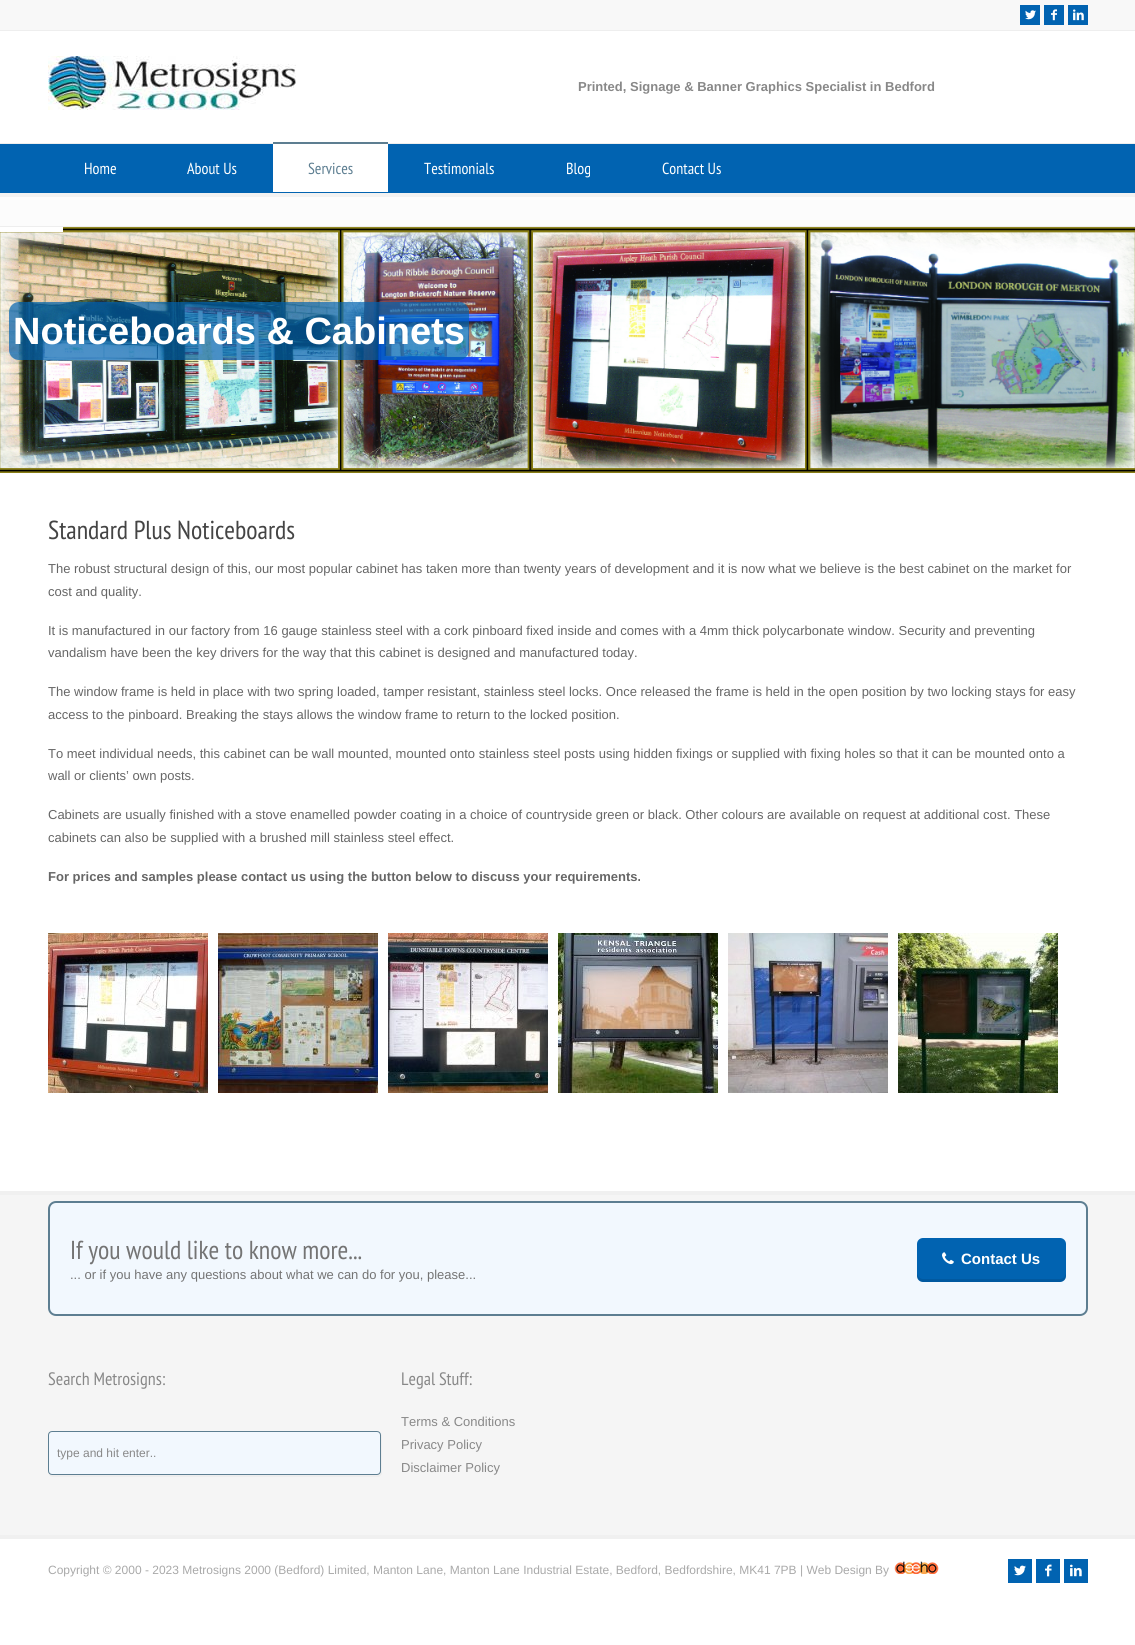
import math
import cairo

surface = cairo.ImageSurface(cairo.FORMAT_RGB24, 1135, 1645)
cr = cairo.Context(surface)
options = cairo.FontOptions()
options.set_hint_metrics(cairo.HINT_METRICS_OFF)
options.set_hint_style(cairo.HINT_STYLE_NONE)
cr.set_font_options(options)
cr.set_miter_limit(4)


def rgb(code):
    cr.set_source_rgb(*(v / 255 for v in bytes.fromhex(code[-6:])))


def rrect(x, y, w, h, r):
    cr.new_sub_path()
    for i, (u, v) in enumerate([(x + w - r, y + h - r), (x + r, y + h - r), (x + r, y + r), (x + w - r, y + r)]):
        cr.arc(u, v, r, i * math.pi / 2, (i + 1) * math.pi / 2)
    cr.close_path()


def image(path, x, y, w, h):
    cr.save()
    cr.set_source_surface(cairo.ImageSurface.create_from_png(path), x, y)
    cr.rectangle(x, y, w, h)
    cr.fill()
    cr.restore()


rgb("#ffffff")
cr.paint()
for x, y, w, h, color in [
    (0, 0, 1135, 30, "#f8f8f8"),
    (0, 30, 1135, 1, "#eeeeee"),
    (1020, 5, 20, 20, "#0163b1"),
]:
    rgb(color)
    cr.rectangle(x, y, w, h)
    cr.fill()
image("img/1.png", 1025, 10, 11, 10)
cr.rectangle(1044, 5, 20, 20)
cr.fill()
image("img/2.png", 1051, 9, 6, 12)
cr.rectangle(1068, 5, 20, 20)
cr.fill()
image("img/3.png", 1073, 9, 11, 12)
image("img/4.png", 48, 56, 248, 54)
for x, y, w, h, color in [
    (0, 193, 1135, 4, "#f2f2f2"),
    (0, 144, 1135, 49, "#0163b1"),
    (0, 143, 1135, 1, "#eeeeee"),
    (273, 144, 115, 48, "#ffffff"),
    (273, 142, 115, 2, "#5d7e91"),
    (0, 197, 1135, 29, "#fcfcfc"),
    (0, 226, 1135, 1, "#eeeeee"),
]:
    rgb(color)
    cr.rectangle(x, y, w, h)
    cr.fill()
image("img/5.png", 0, 227, 1135, 246)
rgb("#ffffff")
cr.rectangle(0, 227, 63, 5)
cr.fill()
cr.set_source_rgba(0.004, 0.388, 0.694, 0.7)
rrect(9, 302, 460, 58, 10)
cr.fill()
image("img/6.png", 48, 933, 160, 160)
image("img/7.png", 218, 933, 160, 160)
image("img/8.png", 388, 933, 160, 160)
image("img/9.png", 558, 933, 160, 160)
image("img/10.png", 728, 933, 160, 160)
image("img/11.png", 898, 933, 160, 160)
rgb("#f5f5f5")
cr.rectangle(0, 1195, 1135, 340)
cr.fill()
rgb("#f0f0f0")
cr.rectangle(0, 1191, 1135, 4)
cr.fill()
rgb("#f2f8fe")
rrect(49, 1202, 1038, 113, 7)
cr.fill_preserve()
rgb("#5d7e91")
cr.stroke()
rgb("#0163b1")
rrect(917, 1238, 149, 44, 6)
cr.fill()
cr.set_source_rgba(0, 0, 0, 0.1)
cr.new_path()
cr.move_to(917, 1273)
cr.line_to(917, 1276)
cr.curve_to(917, 1279, 920, 1282, 923, 1282)
cr.line_to(1060, 1282)
cr.curve_to(1063, 1282, 1066, 1279, 1066, 1276)
cr.line_to(1066, 1273)
cr.curve_to(1066, 1276, 1063, 1279, 1060, 1279)
cr.line_to(923, 1279)
cr.curve_to(920, 1279, 917, 1276, 917, 1273)
cr.close_path()
cr.fill()
image("img/12.png", 942, 1252, 12, 13)
rgb("#eeeeee")
cr.new_path()
cr.move_to(49, 1474)
cr.curve_to(49, 1476, 51, 1477, 53, 1477)
cr.line_to(378, 1477)
cr.curve_to(380, 1477, 382, 1475, 382, 1473)
cr.line_to(382, 1437)
cr.curve_to(382, 1436, 382, 1435, 381, 1434)
cr.line_to(381, 1465)
cr.curve_to(381, 1468, 382, 1475, 377, 1475)
cr.line_to(52, 1475)
cr.close_path()
cr.fill()
rgb("#f2f8fe")
rrect(48.5, 1431.5, 332, 43, 3.5)
cr.fill_preserve()
rgb("#5d7e91")
cr.set_line_width(1)
cr.stroke()
rgb("#f0f0f0")
cr.rectangle(0, 1535, 1135, 4)
cr.fill()
image("img/13.png", 894, 1561, 45, 13)
rgb("#0163b1")
cr.rectangle(1008, 1559, 24, 24)
cr.fill()
image("img/14.png", 1014, 1565, 12, 11)
cr.rectangle(1036, 1559, 24, 24)
cr.fill()
image("img/15.png", 1045, 1564, 7, 13)
cr.rectangle(1064, 1559, 24, 24)
cr.fill()
image("img/16.png", 1070, 1564, 12, 13)
cr.select_font_face("Liberation Sans", cairo.FONT_SLANT_NORMAL, cairo.FONT_WEIGHT_BOLD)
cr.set_font_size(13)
rgb("#888888")
cr.move_to(578, 91)
cr.show_text("Printed, Signage & Banner Graphics Specialist in Bedford")
cr.select_font_face("PT Sans Narrow")
cr.set_font_size(16)
rgb("#ffffff")
cr.move_to(84, 174)
cr.show_text("Home")
cr.move_to(187, 174)
cr.show_text("About Us")
rgb("#5d7e91")
cr.move_to(308, 174)
cr.show_text("Services")
rgb("#ffffff")
for x, y, s in [
    (424, 174, "Testimonials"),
    (566, 174, "Blog"),
    (662, 174, "Contact Us"),
]:
    cr.move_to(x, y)
    cr.show_text(s)
cr.select_font_face("Liberation Sans", cairo.FONT_SLANT_NORMAL, cairo.FONT_WEIGHT_BOLD)
cr.set_font_size(38)
cr.move_to(13, 344)
cr.show_text("Noticeboards & Cabinets")
cr.select_font_face("PT Sans Narrow")
cr.set_font_size(26)
rgb("#444444")
cr.move_to(48, 539)
cr.show_text("Standard Plus Noticeboards")
cr.select_font_face("Liberation Sans")
cr.set_font_size(13)
rgb("#666666")
for x, y, s in [
    (48, 573, "The robust structural design of this, our most popular cabinet has taken more than twenty years of development and it is now what we believe is the best cabinet on the market for"),
    (48, 596, "cost and quality."),
    (48, 635, "It is manufactured in our factory from 16 gauge stainless steel with a cork pinboard fixed inside and comes with a 4mm thick polycarbonate window. Security and preventing"),
    (48, 657, "vandalism have been the key drivers for the way that this cabinet is designed and manufactured today."),
    (48, 696, "The window frame is held in place with two spring loaded, tamper resistant, stainless steel locks. Once released the frame is held in the open position by two locking stays for easy"),
    (48, 719, "access to the pinboard. Breaking the stays allows the window frame to return to the locked position."),
    (48, 758, "To meet individual needs, this cabinet can be wall mounted, mounted onto stainless steel posts using hidden fixings or supplied with fixing holes so that it can be mounted onto a"),
    (48, 780, "wall or clients’ own posts."),
    (48, 819, "Cabinets are usually finished with a stove enamelled powder coating in a choice of countryside green or black. Other colours are available on request at additional cost. These"),
    (48, 842, "cabinets can also be supplied with a brushed mill stainless steel effect."),
]:
    cr.move_to(x, y)
    cr.show_text(s)
cr.select_font_face("Liberation Sans", cairo.FONT_SLANT_NORMAL, cairo.FONT_WEIGHT_BOLD)
cr.move_to(48, 881)
cr.show_text("For prices and samples please contact us using the button below to discuss your requirements.")
cr.select_font_face("PT Sans Narrow")
cr.set_font_size(26)
rgb("#747474")
cr.move_to(70, 1259)
cr.show_text("If you would like to know more...")
cr.select_font_face("Liberation Sans")
cr.set_font_size(13)
cr.move_to(70, 1279)
cr.show_text("... or if you have any questions about what we can do for you, please...")
cr.select_font_face("Liberation Sans", cairo.FONT_SLANT_NORMAL, cairo.FONT_WEIGHT_BOLD)
cr.set_font_size(15)
rgb("#ffffff")
cr.move_to(961, 1264)
cr.show_text("Contact Us")
cr.select_font_face("PT Sans Narrow")
cr.set_font_size(18)
rgb("#888888")
cr.move_to(48, 1385)
cr.show_text("Search Metrosigns:")
cr.select_font_face("Liberation Sans")
cr.set_font_size(12)
cr.move_to(57, 1457)
cr.show_text("type and hit enter..")
cr.select_font_face("PT Sans Narrow")
cr.set_font_size(18)
cr.move_to(401, 1385)
cr.show_text("Legal Stuff:")
cr.select_font_face("Liberation Sans")
cr.set_font_size(13)
for x, y, s in [
    (401, 1426, "Terms & Conditions"),
    (401, 1449, "Privacy Policy"),
    (401, 1472, "Disclaimer Policy"),
]:
    cr.move_to(x, y)
    cr.show_text(s)
cr.set_font_size(12)
rgb("#a9a9a9")
cr.move_to(48, 1574)
cr.show_text("Copyright © 2000 - 2023 Metrosigns 2000 (Bedford) Limited, Manton Lane, Manton Lane Industrial Estate, Bedford, Bedfordshire, MK41 7PB | Web Design By")
surface.write_to_png("page.png")
